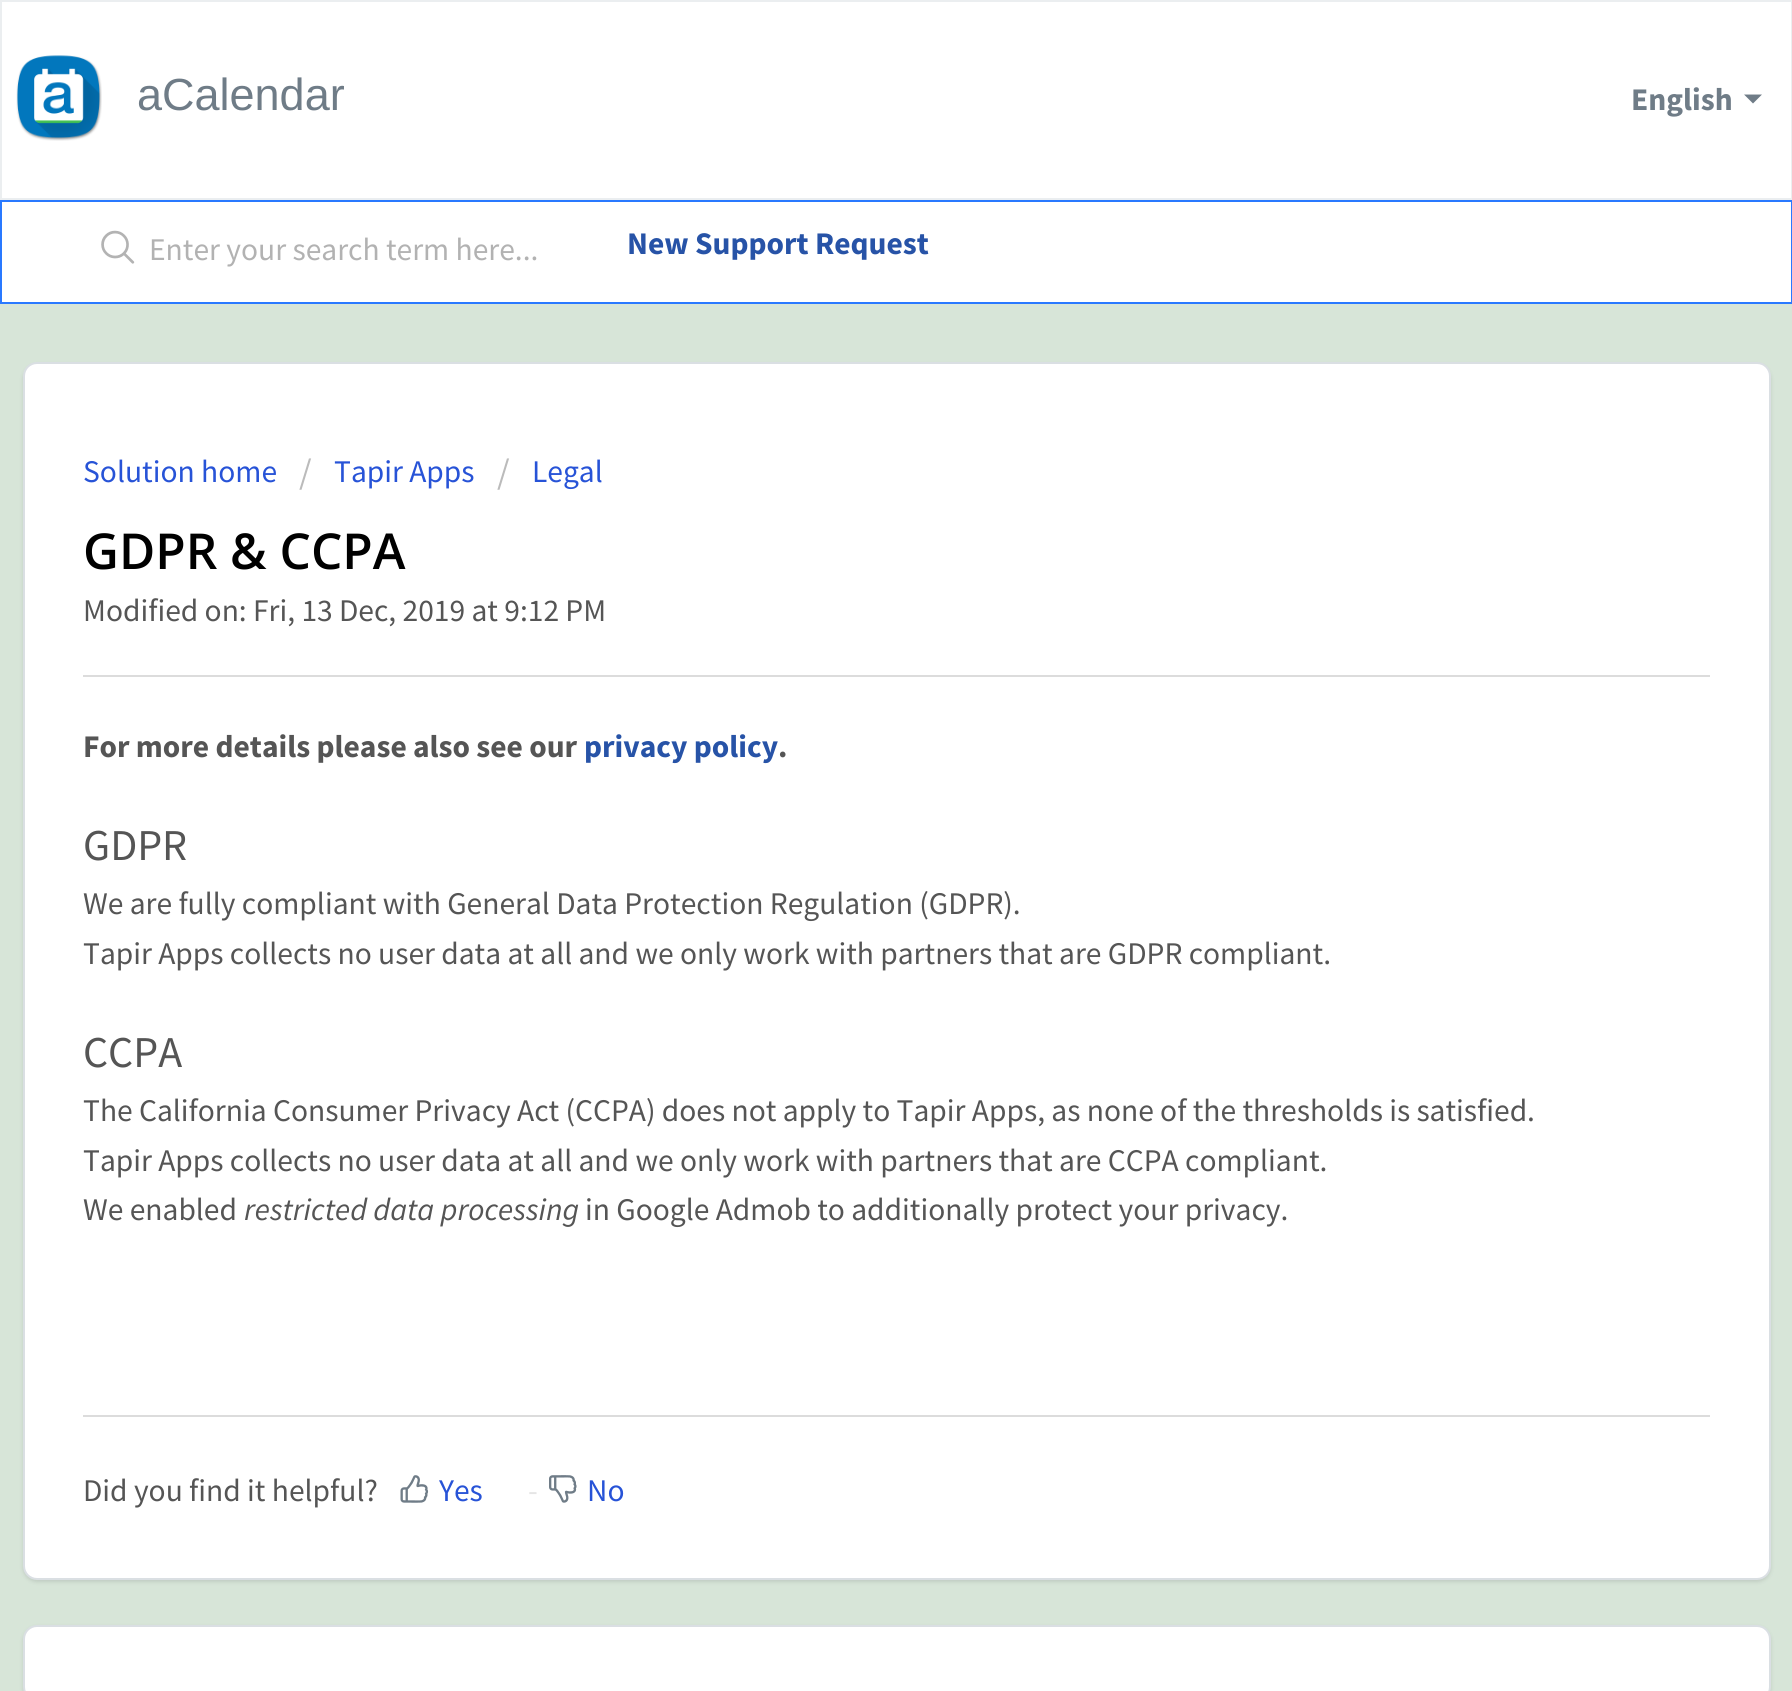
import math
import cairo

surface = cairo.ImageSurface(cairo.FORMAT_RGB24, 1792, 1691)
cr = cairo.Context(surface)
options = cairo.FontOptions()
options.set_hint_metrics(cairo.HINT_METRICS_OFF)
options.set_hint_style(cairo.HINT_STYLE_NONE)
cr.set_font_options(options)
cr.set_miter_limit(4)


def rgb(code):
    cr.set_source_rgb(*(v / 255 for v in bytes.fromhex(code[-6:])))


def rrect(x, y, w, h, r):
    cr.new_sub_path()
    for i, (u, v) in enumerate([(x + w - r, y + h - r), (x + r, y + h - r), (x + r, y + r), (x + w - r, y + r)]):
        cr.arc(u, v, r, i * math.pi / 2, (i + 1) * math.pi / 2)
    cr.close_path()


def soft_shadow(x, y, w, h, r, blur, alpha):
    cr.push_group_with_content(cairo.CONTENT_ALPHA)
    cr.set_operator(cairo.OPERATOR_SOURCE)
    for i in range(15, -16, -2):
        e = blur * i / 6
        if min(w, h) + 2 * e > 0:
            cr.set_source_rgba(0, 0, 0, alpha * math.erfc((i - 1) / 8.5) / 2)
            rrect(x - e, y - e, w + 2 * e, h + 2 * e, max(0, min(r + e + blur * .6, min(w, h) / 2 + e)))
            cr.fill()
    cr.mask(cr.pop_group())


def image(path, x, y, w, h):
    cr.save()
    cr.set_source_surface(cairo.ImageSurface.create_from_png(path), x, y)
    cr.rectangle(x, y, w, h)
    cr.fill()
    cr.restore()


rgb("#d7e5d8")
cr.paint()
rgb("#ffffff")
cr.rectangle(1, 1, 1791, 198)
cr.fill_preserve()
rgb("#ebeef0")
cr.stroke()
image("img/1.png", 16, 55, 86, 86)
rgb("#6f7c87")
cr.new_path()
cr.move_to(1744, 94.5)
cr.line_to(1762, 94.5)
cr.line_to(1753, 103.5)
cr.close_path()
cr.fill()
rgb("#ffffff")
cr.rectangle(1, 201, 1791, 102)
cr.fill_preserve()
rgb("#2979ff")
cr.stroke()
image("img/2.png", 101, 230, 34, 34)
rgb("#3f3f44")
soft_shadow(23, 365, 1748, 1217, 14, 2, 0.15)
rgb("#ffffff")
rrect(24, 363, 1746, 1216, 13)
cr.fill_preserve()
rgb("#dadfe3")
cr.stroke()
rgb("#dcdcdc")
cr.rectangle(83, 675, 1627, 2)
cr.fill()
cr.rectangle(83, 1415, 1627, 2)
cr.fill()
image("img/3.png", 400, 1475, 29, 28)
image("img/4.png", 549, 1475, 28, 28)
rgb("#3f3f44")
soft_shadow(23, 1627, 1748, 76, 14, 2, 0.15)
rgb("#ffffff")
rrect(24, 1626, 1746, 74, 13)
cr.fill_preserve()
rgb("#dadfe3")
cr.stroke()
cr.select_font_face("Liberation Sans")
cr.set_font_size(45)
rgb("#6f7c87")
cr.move_to(137, 110)
cr.show_text("aCalendar")
cr.select_font_face("Source Sans Pro", cairo.FONT_SLANT_NORMAL, cairo.FONT_WEIGHT_BOLD)
cr.set_font_size(31.5)
cr.move_to(1631, 110)
cr.show_text("English")
cr.select_font_face("Source Sans Pro")
rgb("#b2b2b2")
cr.move_to(149, 260)
cr.show_text("Enter your search term here...")
cr.select_font_face("Source Sans Pro", cairo.FONT_SLANT_NORMAL, cairo.FONT_WEIGHT_BOLD)
rgb("#2753a7")
cr.move_to(627, 254)
cr.show_text("New Support Request")
cr.select_font_face("Source Sans Pro")
rgb("#2753d7")
cr.move_to(83, 482)
cr.show_text("Solution home")
cr.set_font_size(36)
rgb("#bbbbbb")
cr.move_to(299, 484)
cr.show_text("/")
cr.set_font_size(31.5)
rgb("#2753d7")
cr.move_to(334, 482)
cr.show_text("Tapir Apps")
cr.set_font_size(36)
rgb("#bbbbbb")
cr.move_to(497, 484)
cr.show_text("/")
cr.set_font_size(31.5)
rgb("#2753d7")
cr.move_to(532, 482)
cr.show_text("Legal")
cr.select_font_face("Open Sans SemiBold")
cr.set_font_size(49.5)
rgb("#000000")
cr.move_to(83, 569)
cr.show_text("GDPR & CCPA")
cr.select_font_face("Source Sans Pro")
cr.set_font_size(31.5)
rgb("#555555")
cr.move_to(83, 621)
cr.show_text("Modified on: Fri, 13 Dec, 2019 at 9:12 PM")
cr.select_font_face("Source Sans Pro", cairo.FONT_SLANT_NORMAL, cairo.FONT_WEIGHT_BOLD)
cr.move_to(83, 757)
cr.show_text("For more details please also see our")
rgb("#2753a7")
cr.move_to(584, 757)
cr.show_text("privacy policy")
rgb("#555555")
cr.move_to(778, 757)
cr.show_text(".")
cr.select_font_face("Source Sans Pro")
cr.set_font_size(44)
cr.move_to(83, 860)
cr.show_text("GDPR")
cr.set_font_size(31.5)
cr.move_to(83, 914)
cr.show_text("We are fully compliant with General Data Protection Regulation (GDPR).")
cr.move_to(83, 964)
cr.show_text("Tapir Apps collects no user data at all and we only work with partners that are GDPR compliant.")
cr.set_font_size(44)
cr.move_to(83, 1067)
cr.show_text("CCPA")
cr.set_font_size(31.5)
for x, y, s in [
    (83, 1121, "The California Consumer Privacy Act (CCPA) does not apply to Tapir Apps, as none of the thresholds is satisfied."),
    (83, 1171, "Tapir Apps collects no user data at all and we only work with partners that are CCPA compliant."),
    (83, 1220, "We enabled"),
]:
    cr.move_to(x, y)
    cr.show_text(s)
cr.select_font_face("Source Sans Pro", cairo.FONT_SLANT_ITALIC)
cr.move_to(244, 1220)
cr.show_text("restricted data processing")
cr.select_font_face("Source Sans Pro")
cr.move_to(585, 1220)
cr.show_text("in Google Admob to additionally protect your privacy.")
cr.move_to(83, 1501)
cr.show_text("Did you find it helpful?")
rgb("#2753d7")
cr.move_to(439, 1501)
cr.show_text("Yes")
rgb("#e5e5e5")
cr.move_to(528, 1501)
cr.show_text("-")
rgb("#2753d7")
cr.move_to(587, 1501)
cr.show_text("No")
surface.write_to_png("page.png")
